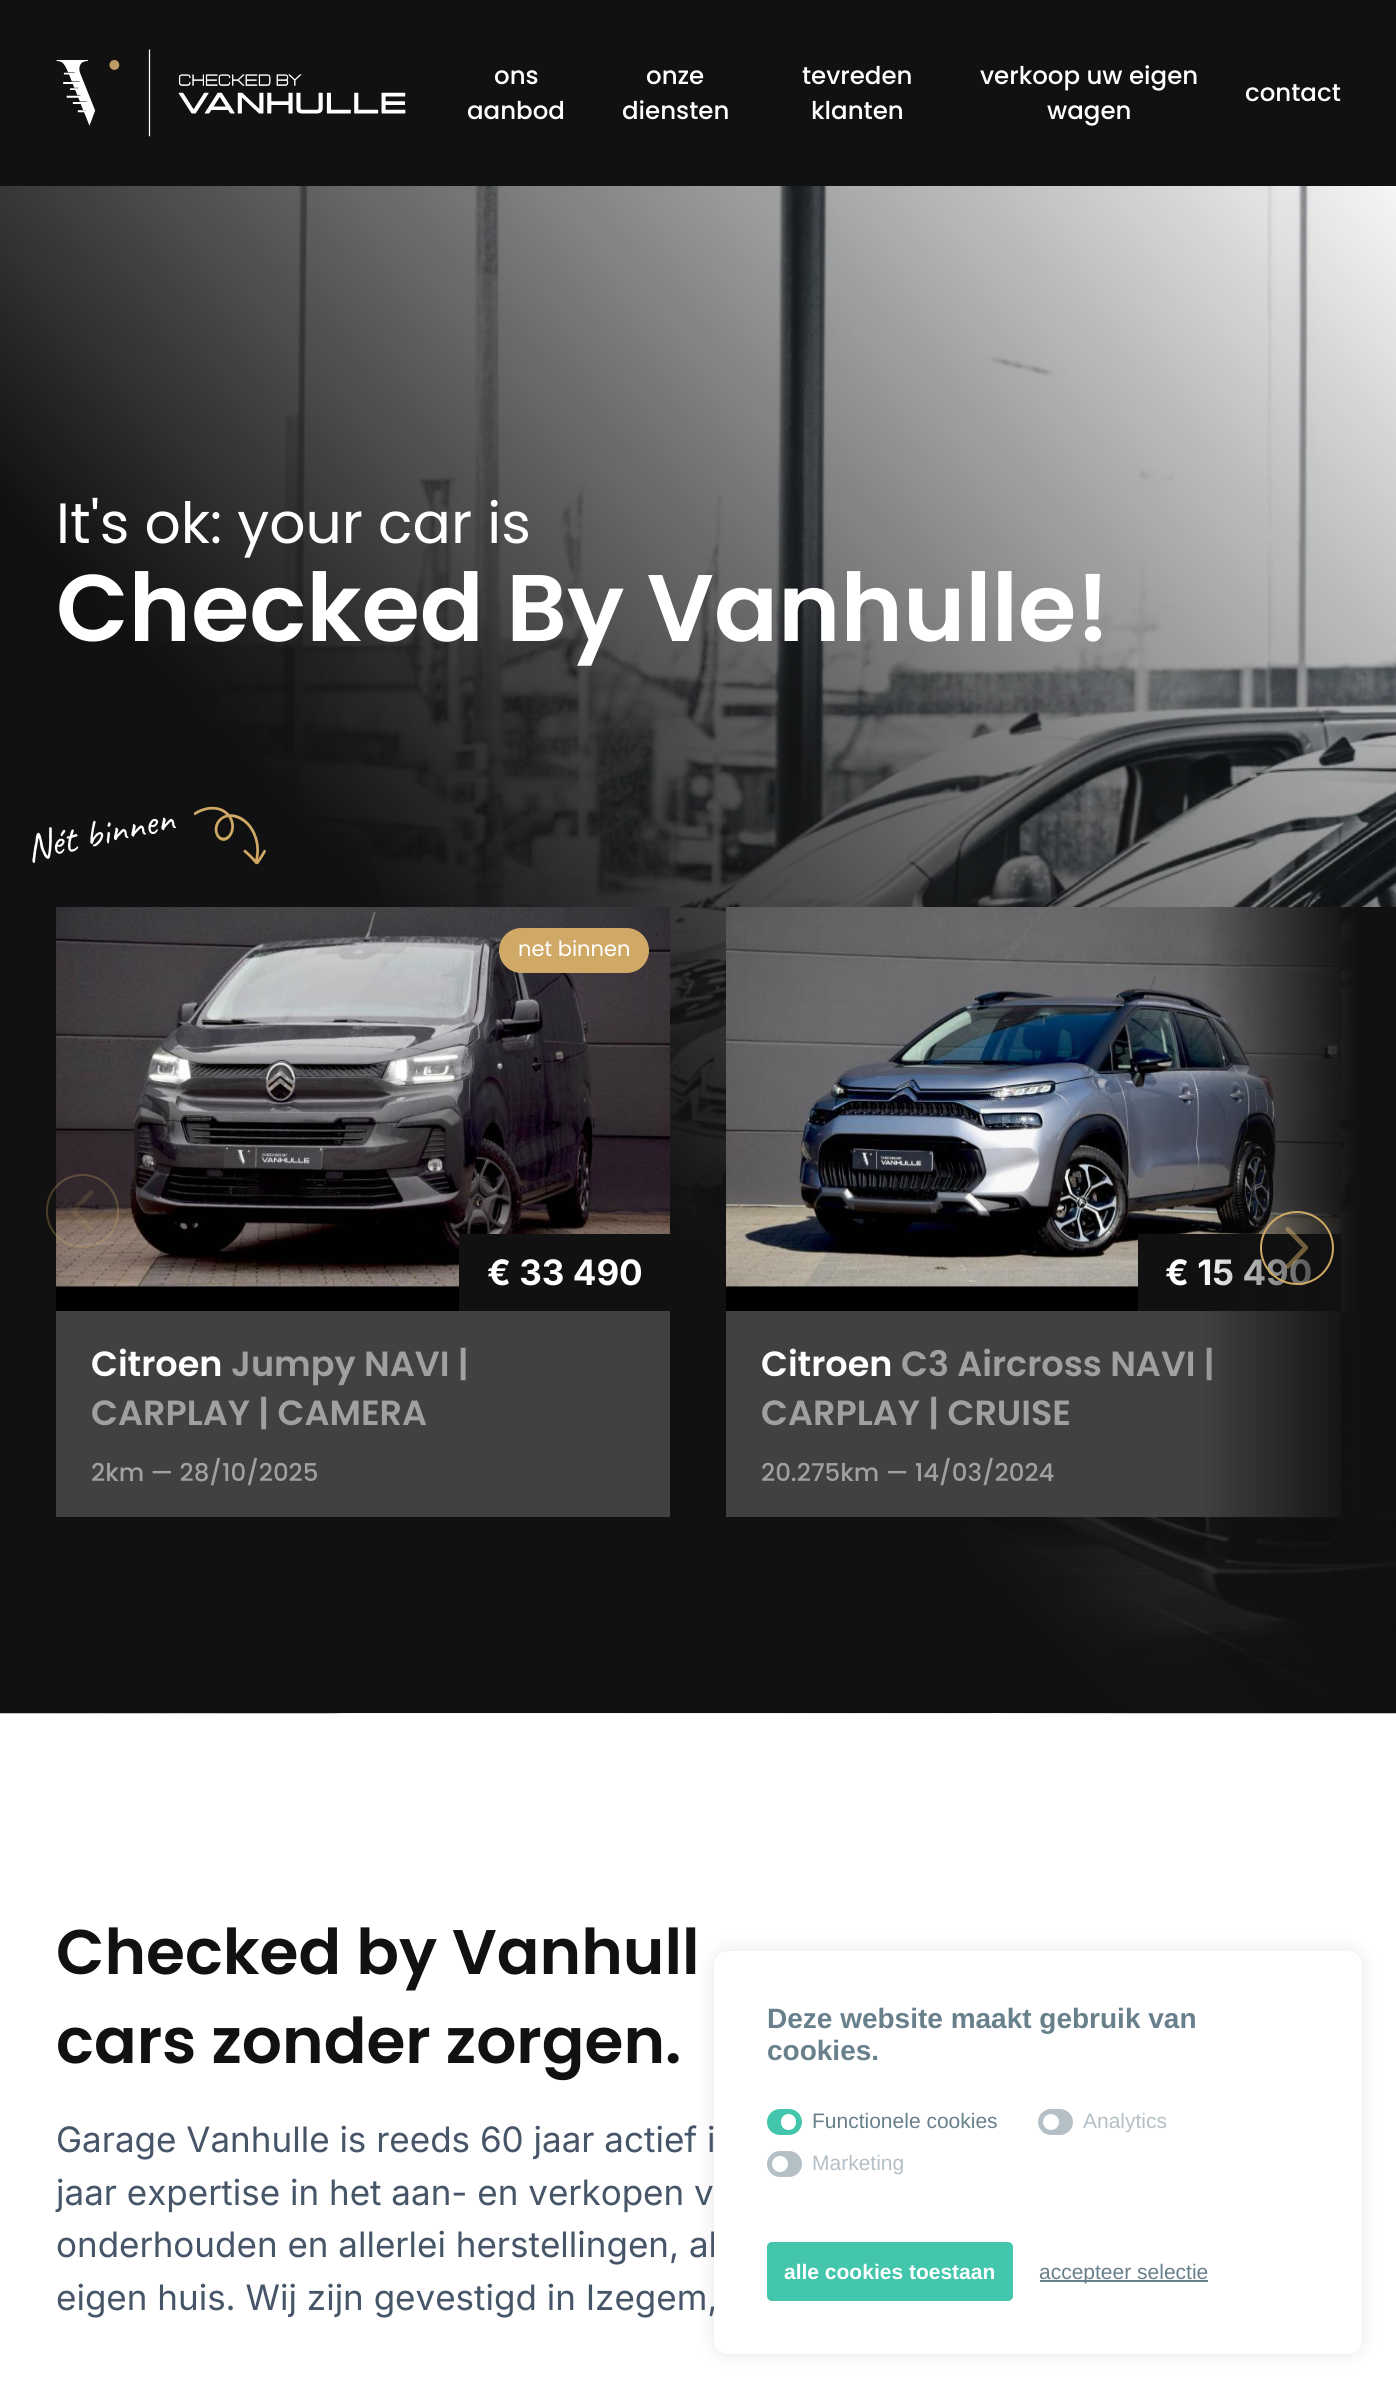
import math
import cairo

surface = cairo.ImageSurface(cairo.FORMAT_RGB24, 1396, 2388)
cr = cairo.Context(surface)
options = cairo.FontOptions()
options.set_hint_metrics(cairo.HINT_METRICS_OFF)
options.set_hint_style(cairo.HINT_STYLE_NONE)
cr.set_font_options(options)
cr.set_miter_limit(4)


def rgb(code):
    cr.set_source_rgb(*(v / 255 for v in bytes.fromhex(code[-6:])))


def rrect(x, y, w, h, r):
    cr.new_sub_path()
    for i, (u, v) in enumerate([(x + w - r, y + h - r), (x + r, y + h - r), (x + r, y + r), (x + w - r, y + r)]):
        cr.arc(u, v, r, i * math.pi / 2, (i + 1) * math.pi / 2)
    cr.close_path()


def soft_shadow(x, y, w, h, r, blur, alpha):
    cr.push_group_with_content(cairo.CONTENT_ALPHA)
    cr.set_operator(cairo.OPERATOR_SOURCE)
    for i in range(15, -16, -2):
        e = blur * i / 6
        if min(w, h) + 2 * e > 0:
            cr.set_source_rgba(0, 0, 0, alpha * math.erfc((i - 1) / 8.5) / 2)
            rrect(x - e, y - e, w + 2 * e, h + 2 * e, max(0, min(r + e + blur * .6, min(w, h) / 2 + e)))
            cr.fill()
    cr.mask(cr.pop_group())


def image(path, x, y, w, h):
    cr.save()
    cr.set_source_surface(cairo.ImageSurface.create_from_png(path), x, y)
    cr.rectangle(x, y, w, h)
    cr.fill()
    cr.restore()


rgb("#ffffff")
cr.paint()
rgb("#111111")
cr.rectangle(0, 0, 1396, 186)
cr.fill()
image("img/1.png", 56, 49, 350, 88)
image("img/2.png", 0, 186, 1396, 1528)
image("img/3.png", 193, 806, 73, 59)
image("img/5.png", 56, 907, 614, 404)
rrect(47, 1175, 71, 72, 35.5)
cr.set_source_rgba(0.812, 0.663, 0.396, 0.3)
cr.stroke()
image("img/4.png", 71, 1190, 23, 42)
rgb("#414141")
cr.rectangle(56, 1311, 614, 206)
cr.fill()
rgb("#cfa965")
rrect(500, 929, 148, 43, 21.5)
cr.fill_preserve()
cr.stroke()
rgb("#111111")
cr.rectangle(459, 1234, 211, 77)
cr.fill()
rgb("#414141")
cr.rectangle(726, 1311, 615, 206)
cr.fill()
image("img/6.png", 726, 907, 615, 404)
rgb("#111111")
cr.rectangle(1138, 1234, 203, 77)
cr.fill()
rgb("#000000")
soft_shadow(714, 1951, 648, 403, 14, 9, 0.1)
cr.select_font_face("Poppins Medium")
cr.set_font_size(24.5)
rgb("#ffffff")
for x, y, s in [
    (494, 84, "ons"),
    (467, 119, "aanbod"),
    (646, 84, "onze"),
    (622, 119, "diensten"),
    (802, 84, "tevreden"),
    (811, 119, "klanten"),
    (980, 84, "verkoop uw eigen"),
    (1047, 119, "wagen"),
    (1245, 101, "contact"),
]:
    cr.move_to(x, y)
    cr.show_text(s)
cr.select_font_face("Poppins")
cr.set_font_size(56.75)
cr.move_to(56, 543)
cr.show_text("It's ok: your car is")
cr.select_font_face("Poppins SemiBold")
cr.set_font_size(94.5)
cr.move_to(56, 641)
cr.show_text("Checked By Vanhulle!")
cr.select_font_face("Caveat")
cr.set_font_size(39.5)
cr.save()
cr.translate(29, 861)
cr.rotate(-12 * math.pi / 180)
cr.move_to(0, 0)
cr.show_text("Nét binnen")
cr.restore()
cr.select_font_face("Poppins")
cr.set_font_size(21)
cr.move_to(518, 956)
cr.show_text("net binnen")
cr.select_font_face("Inter", cairo.FONT_SLANT_NORMAL, cairo.FONT_WEIGHT_BOLD)
cr.set_font_size(35)
cr.move_to(487, 1285)
cr.show_text("€ 33 490")
cr.select_font_face("Poppins SemiBold")
cr.move_to(91, 1376)
cr.show_text("Citroen")
rgb("#a0a0a0")
cr.move_to(231, 1376)
cr.show_text("Jumpy NAVI |")
cr.move_to(91, 1425)
cr.show_text("CARPLAY | CAMERA")
cr.select_font_face("Poppins Medium")
cr.set_font_size(24.5)
cr.move_to(91, 1481)
cr.show_text("2km — 28/10/2025")
cr.select_font_face("Inter", cairo.FONT_SLANT_NORMAL, cairo.FONT_WEIGHT_BOLD)
cr.set_font_size(35)
rgb("#ffffff")
cr.move_to(1165, 1285)
cr.show_text("€ 15 490")
cr.select_font_face("Poppins SemiBold")
cr.move_to(761, 1376)
cr.show_text("Citroen")
rgb("#a0a0a0")
cr.move_to(901, 1376)
cr.show_text("C3 Aircross NAVI |")
gradient = cairo.LinearGradient(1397, 1212, 1201, 1212)
gradient.add_color_stop_rgba(0.2, 0.067, 0.067, 0.067, 1)
gradient.add_color_stop_rgba(1, 0.067, 0.067, 0.067, 0)
cr.set_source(gradient)
cr.rectangle(1204, 907, 192, 610)
cr.fill()
rgb("#a0a0a0")
cr.move_to(761, 1425)
cr.show_text("CARPLAY | CRUISE")
cr.select_font_face("Poppins Medium")
cr.set_font_size(24.5)
cr.move_to(761, 1481)
cr.show_text("20.275km — 14/03/2024")
cr.new_path()
cr.arc(1297, 1248, 36, 0, 2 * math.pi)
rgb("#cfa965")
cr.stroke()
image("img/7.png", 1285, 1227, 24, 42)
cr.select_font_face("Poppins SemiBold")
cr.set_font_size(63)
rgb("#111111")
cr.move_to(56, 1974)
cr.show_text("Checked by Vanhull")
cr.move_to(56, 2063)
cr.show_text("cars zonder zorgen.")
cr.select_font_face("Inter")
cr.set_font_size(35)
rgb("#475569")
for x, y, s in [
    (56, 2152, "Garage Vanhulle is reeds 60 jaar actief i"),
    (56, 2205, "jaar expertise in het aan- en verkopen v"),
    (56, 2257, "onderhouden en allerlei herstellingen, al"),
    (56, 2310, "eigen huis. Wij zijn gevestigd in Izegem,"),
]:
    cr.move_to(x, y)
    cr.show_text(s)
rgb("#ffffff")
rrect(714, 1951, 648, 403, 14)
cr.fill()
cr.select_font_face("Liberation Sans", cairo.FONT_SLANT_NORMAL, cairo.FONT_WEIGHT_BOLD)
cr.set_font_size(28)
rgb("#687f8c")
cr.move_to(767, 2028)
cr.show_text("Deze website maakt gebruik van")
cr.move_to(767, 2060)
cr.show_text("cookies.")
rgb("#43c6ac")
rrect(767, 2109, 35, 26, 13)
cr.fill()
rgb("#ffffff")
rrect(781, 2114, 15, 16, 7.5)
cr.fill()
cr.select_font_face("Liberation Sans")
cr.set_font_size(21)
rgb("#687f8c")
cr.move_to(812, 2128)
cr.show_text("Functionele cookies")
rgb("#b4bfc6")
rrect(1038, 2109, 35, 26, 13)
cr.fill()
rgb("#ffffff")
cr.arc(1051, 2122, 8, 0, 2 * math.pi)
cr.fill()
rgb("#b4bfc6")
cr.move_to(1083, 2128)
cr.show_text("Analytics")
rrect(767, 2151, 35, 26, 13)
cr.fill()
rgb("#ffffff")
cr.arc(780, 2164, 8, 0, 2 * math.pi)
cr.fill()
rgb("#b4bfc6")
cr.move_to(812, 2170)
cr.show_text("Marketing")
rgb("#43c6ac")
rrect(767, 2242, 246, 59, 5)
cr.fill()
cr.select_font_face("Liberation Sans", cairo.FONT_SLANT_NORMAL, cairo.FONT_WEIGHT_BOLD)
rgb("#ffffff")
cr.move_to(784, 2279)
cr.show_text("alle cookies toestaan")
rgb("#687f8c")
cr.rectangle(1040, 2280, 168, 2)
cr.fill()
cr.select_font_face("Liberation Sans")
cr.move_to(1039, 2279)
cr.show_text("accepteer selectie")
surface.write_to_png("page.png")
